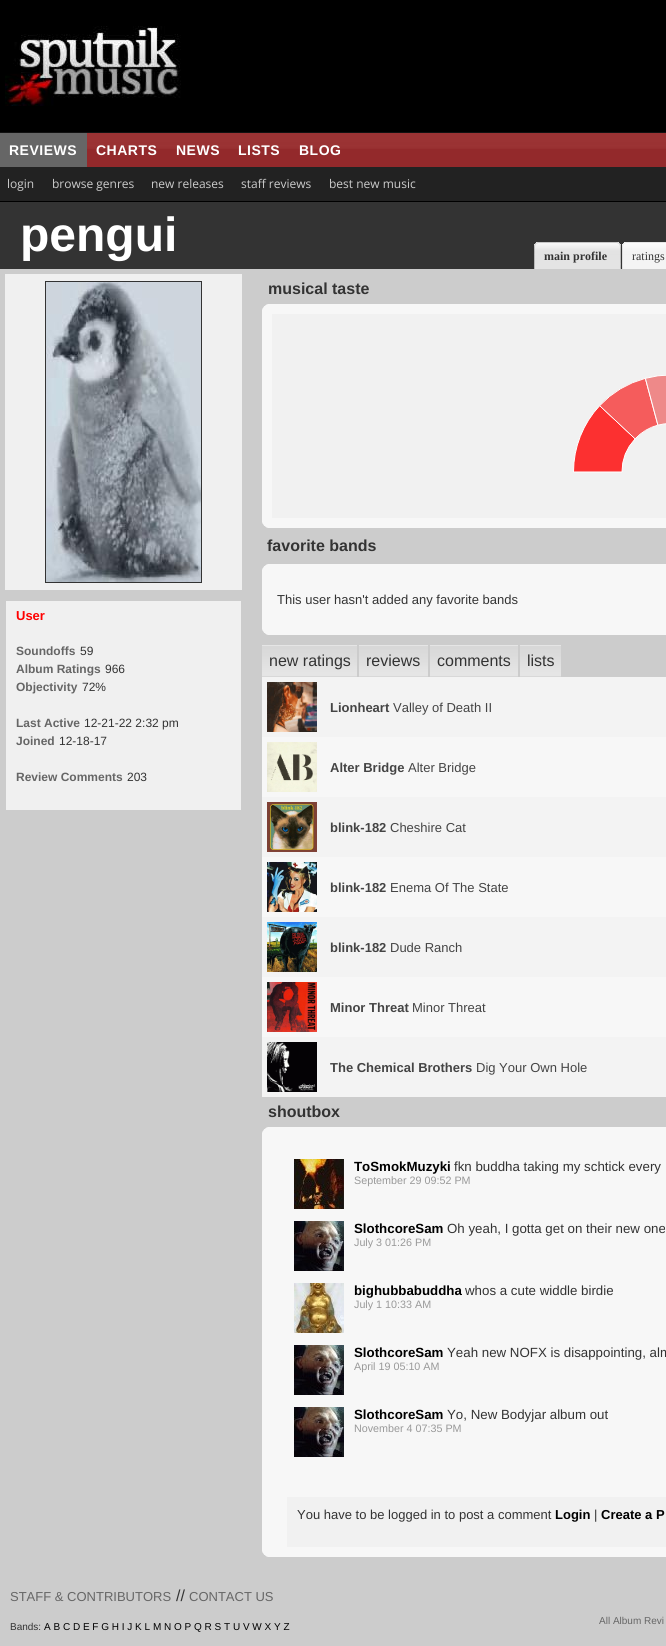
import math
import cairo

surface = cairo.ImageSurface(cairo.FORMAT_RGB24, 666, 1646)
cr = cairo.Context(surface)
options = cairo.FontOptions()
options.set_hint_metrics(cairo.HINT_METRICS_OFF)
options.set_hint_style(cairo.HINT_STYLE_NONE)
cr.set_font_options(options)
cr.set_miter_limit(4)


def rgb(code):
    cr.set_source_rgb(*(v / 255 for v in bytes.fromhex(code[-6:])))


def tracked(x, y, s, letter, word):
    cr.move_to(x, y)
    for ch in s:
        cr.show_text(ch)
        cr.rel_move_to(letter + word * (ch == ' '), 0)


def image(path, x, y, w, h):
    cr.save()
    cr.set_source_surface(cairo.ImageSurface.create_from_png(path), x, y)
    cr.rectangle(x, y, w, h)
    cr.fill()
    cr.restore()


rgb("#cccccc")
cr.paint()
image("img/1.png", 0, 0, 666, 132)
image("img/2.png", 5, 26, 176, 80)
image("img/3.png", 87, 133, 579, 34)
for x, y, w, h, color in [
    (0, 132, 666, 1, "#111111"),
    (0, 133, 87, 34, "#666666"),
    (0, 167, 666, 34, "#222222"),
    (0, 201, 666, 1, "#000000"),
    (0, 202, 666, 67, "#333333"),
]:
    rgb(color)
    cr.rectangle(x, y, w, h)
    cr.fill()
image("img/4.png", 534, 242, 4, 27)
image("img/5.png", 538, 242, 83, 27)
image("img/6.png", 622, 242, 4, 27)
image("img/7.png", 626, 242, 40, 27)
rgb("#f0f0f0")
cr.rectangle(5, 274, 237, 316)
cr.fill()
cr.rectangle(45.5, 281.5, 156, 301)
rgb("#333333")
cr.set_line_width(1)
cr.stroke()
image("img/8.png", 46, 282, 155, 300)
rgb("#f0f0f0")
cr.rectangle(6, 601, 235, 209)
cr.fill()
rgb("#f7f7f7")
cr.rectangle(262, 304, 404, 224)
cr.fill()
image("img/9.png", 262, 304, 6, 6)
rgb("#f1f1f1")
cr.rectangle(272, 314, 394, 204)
cr.fill()
image("img/10.png", 573, 375, 93, 98)
image("img/11.png", 262, 522, 6, 6)
rgb("#f7f7f7")
cr.rectangle(262, 564, 404, 71)
cr.fill()
image("img/9.png", 262, 564, 6, 6)
image("img/11.png", 262, 629, 6, 6)
image("img/12.png", 262, 645, 95, 32)
image("img/13.png", 359, 645, 69, 32)
image("img/14.png", 430, 645, 88, 32)
image("img/15.png", 520, 645, 41, 32)
cr.rectangle(262, 737, 404, 300)
cr.fill()
rgb("#f3f3f3")
cr.rectangle(262, 677, 404, 60)
cr.fill()
image("img/16.png", 267, 682, 50, 50)
image("img/17.png", 267, 742, 50, 50)
cr.rectangle(262, 797, 404, 60)
cr.fill()
image("img/18.png", 267, 802, 50, 50)
image("img/19.png", 267, 862, 50, 50)
cr.rectangle(262, 917, 404, 60)
cr.fill()
image("img/20.png", 267, 922, 50, 50)
image("img/21.png", 267, 982, 50, 50)
cr.rectangle(262, 1037, 404, 60)
cr.fill()
image("img/22.png", 267, 1042, 50, 50)
rgb("#f7f7f7")
cr.rectangle(262, 1127, 404, 430)
cr.fill()
image("img/9.png", 262, 1127, 6, 6)
image("img/23.png", 294, 1159, 50, 50)
image("img/24.png", 294, 1221, 50, 50)
image("img/25.png", 294, 1283, 50, 50)
image("img/24.png", 294, 1345, 50, 50)
image("img/24.png", 294, 1407, 50, 50)
rgb("#f1f1f1")
cr.rectangle(287, 1497, 379, 50)
cr.fill()
image("img/11.png", 262, 1551, 6, 6)
cr.select_font_face("Liberation Sans", cairo.FONT_SLANT_NORMAL, cairo.FONT_WEIGHT_BOLD)
cr.set_font_size(14)
rgb("#ffffff")
for x, y, s in [
    (9, 155, "REVIEWS"),
    (96, 155, "CHARTS"),
    (176, 155, "NEWS"),
    (238, 155, "LISTS"),
    (299, 155, "BLOG"),
]:
    tracked(x, y, s, 0.5, 0)
cr.select_font_face("Open Sans")
cr.set_font_size(12)
rgb("#cccccc")
for x, y, s in [
    (7, 188, "login"),
    (52, 188, "browse genres"),
    (151, 188, "new releases"),
    (241, 188, "staff reviews"),
    (329, 188, "best new music"),
]:
    cr.move_to(x, y)
    cr.show_text(s)
cr.select_font_face("Liberation Sans", cairo.FONT_SLANT_NORMAL, cairo.FONT_WEIGHT_BOLD)
cr.set_font_size(48)
rgb("#ffffff")
cr.move_to(20, 251)
cr.show_text("pengui")
cr.select_font_face("Liberation Serif", cairo.FONT_SLANT_NORMAL, cairo.FONT_WEIGHT_BOLD)
cr.set_font_size(12)
rgb("#333333")
cr.move_to(544, 260)
cr.show_text("main profile")
cr.select_font_face("Liberation Serif")
cr.move_to(632, 260)
cr.show_text("ratings")
cr.select_font_face("Liberation Sans", cairo.FONT_SLANT_NORMAL, cairo.FONT_WEIGHT_BOLD)
cr.set_font_size(13)
rgb("#ff0000")
cr.move_to(16, 620)
cr.show_text("User")
cr.set_font_size(12)
rgb("#666666")
cr.move_to(16, 655)
cr.show_text("Soundoffs")
cr.select_font_face("Liberation Sans")
rgb("#333333")
cr.move_to(80, 655)
cr.show_text("59")
cr.select_font_face("Liberation Sans", cairo.FONT_SLANT_NORMAL, cairo.FONT_WEIGHT_BOLD)
rgb("#666666")
cr.move_to(16, 673)
cr.show_text("Album Ratings")
cr.select_font_face("Liberation Sans")
rgb("#333333")
cr.move_to(105, 673)
cr.show_text("966")
cr.select_font_face("Liberation Sans", cairo.FONT_SLANT_NORMAL, cairo.FONT_WEIGHT_BOLD)
rgb("#666666")
cr.move_to(16, 691)
cr.show_text("Objectivity")
cr.select_font_face("Liberation Sans")
rgb("#333333")
cr.move_to(82, 691)
cr.show_text("72%")
cr.select_font_face("Liberation Sans", cairo.FONT_SLANT_NORMAL, cairo.FONT_WEIGHT_BOLD)
rgb("#666666")
cr.move_to(16, 727)
cr.show_text("Last Active")
cr.select_font_face("Liberation Sans")
rgb("#333333")
cr.move_to(84, 727)
cr.show_text("12-21-22 2:32 pm")
cr.select_font_face("Liberation Sans", cairo.FONT_SLANT_NORMAL, cairo.FONT_WEIGHT_BOLD)
rgb("#666666")
cr.move_to(16, 745)
cr.show_text("Joined")
cr.select_font_face("Liberation Sans")
rgb("#333333")
cr.move_to(59, 745)
cr.show_text("12-18-17")
cr.select_font_face("Liberation Sans", cairo.FONT_SLANT_NORMAL, cairo.FONT_WEIGHT_BOLD)
rgb("#666666")
cr.move_to(16, 781)
cr.show_text("Review Comments")
cr.select_font_face("Liberation Sans")
rgb("#333333")
cr.move_to(127, 781)
cr.show_text("203")
cr.select_font_face("Liberation Sans", cairo.FONT_SLANT_NORMAL, cairo.FONT_WEIGHT_BOLD)
cr.set_font_size(16)
cr.move_to(268, 294)
cr.show_text("musical taste")
cr.move_to(267, 551)
cr.show_text("favorite bands")
cr.select_font_face("Liberation Sans")
cr.set_font_size(13)
cr.move_to(277, 604)
cr.show_text("This user hasn't added any favorite bands")
cr.set_font_size(16)
for x, y, s in [
    (269, 666, "new ratings"),
    (366, 666, "reviews"),
    (437, 666, "comments"),
    (527, 666, "lists"),
]:
    cr.move_to(x, y)
    cr.show_text(s)
cr.select_font_face("Liberation Sans", cairo.FONT_SLANT_NORMAL, cairo.FONT_WEIGHT_BOLD)
cr.set_font_size(13)
rgb("#444444")
cr.move_to(330, 712)
cr.show_text("Lionheart")
cr.select_font_face("Liberation Sans")
cr.move_to(393, 712)
cr.show_text("Valley of Death II")
cr.select_font_face("Liberation Sans", cairo.FONT_SLANT_NORMAL, cairo.FONT_WEIGHT_BOLD)
cr.move_to(330, 772)
cr.show_text("Alter Bridge")
cr.select_font_face("Liberation Sans")
cr.move_to(408, 772)
cr.show_text("Alter Bridge")
cr.select_font_face("Liberation Sans", cairo.FONT_SLANT_NORMAL, cairo.FONT_WEIGHT_BOLD)
cr.move_to(330, 832)
cr.show_text("blink-182")
cr.select_font_face("Liberation Sans")
cr.move_to(390, 832)
cr.show_text("Cheshire Cat")
cr.select_font_face("Liberation Sans", cairo.FONT_SLANT_NORMAL, cairo.FONT_WEIGHT_BOLD)
cr.move_to(330, 892)
cr.show_text("blink-182")
cr.select_font_face("Liberation Sans")
cr.move_to(390, 892)
cr.show_text("Enema Of The State")
cr.select_font_face("Liberation Sans", cairo.FONT_SLANT_NORMAL, cairo.FONT_WEIGHT_BOLD)
cr.move_to(330, 952)
cr.show_text("blink-182")
cr.select_font_face("Liberation Sans")
cr.move_to(390, 952)
cr.show_text("Dude Ranch")
cr.select_font_face("Liberation Sans", cairo.FONT_SLANT_NORMAL, cairo.FONT_WEIGHT_BOLD)
cr.move_to(330, 1012)
cr.show_text("Minor Threat")
cr.select_font_face("Liberation Sans")
cr.move_to(412, 1012)
cr.show_text("Minor Threat")
cr.select_font_face("Liberation Sans", cairo.FONT_SLANT_NORMAL, cairo.FONT_WEIGHT_BOLD)
cr.move_to(330, 1072)
cr.show_text("The Chemical Brothers")
cr.select_font_face("Liberation Sans")
cr.move_to(476, 1072)
cr.show_text("Dig Your Own Hole")
cr.select_font_face("Liberation Sans", cairo.FONT_SLANT_NORMAL, cairo.FONT_WEIGHT_BOLD)
cr.set_font_size(16)
rgb("#333333")
cr.move_to(268, 1117)
cr.show_text("shoutbox")
cr.set_font_size(13.3)
rgb("#000000")
cr.move_to(354, 1171)
cr.show_text("ToSmokMuzyki")
cr.select_font_face("Liberation Sans")
rgb("#333333")
cr.move_to(454, 1171)
cr.show_text("fkn buddha taking my schtick every")
cr.set_font_size(10.75)
rgb("#999999")
cr.move_to(354, 1184)
cr.show_text("September 29 09:52 PM")
cr.select_font_face("Liberation Sans", cairo.FONT_SLANT_NORMAL, cairo.FONT_WEIGHT_BOLD)
cr.set_font_size(13.3)
rgb("#000000")
cr.move_to(354, 1233)
cr.show_text("SlothcoreSam")
cr.select_font_face("Liberation Sans")
rgb("#333333")
cr.move_to(447, 1233)
cr.show_text("Oh yeah, I gotta get on their new one")
cr.set_font_size(10.75)
rgb("#999999")
cr.move_to(354, 1246)
cr.show_text("July 3 01:26 PM")
cr.select_font_face("Liberation Sans", cairo.FONT_SLANT_NORMAL, cairo.FONT_WEIGHT_BOLD)
cr.set_font_size(13.3)
rgb("#000000")
cr.move_to(354, 1295)
cr.show_text("bighubbabuddha")
cr.select_font_face("Liberation Sans")
rgb("#333333")
cr.move_to(465, 1295)
cr.show_text("whos a cute widdle birdie")
cr.set_font_size(10.75)
rgb("#999999")
cr.move_to(354, 1308)
cr.show_text("July 1 10:33 AM")
cr.select_font_face("Liberation Sans", cairo.FONT_SLANT_NORMAL, cairo.FONT_WEIGHT_BOLD)
cr.set_font_size(13.3)
rgb("#000000")
cr.move_to(354, 1357)
cr.show_text("SlothcoreSam")
cr.select_font_face("Liberation Sans")
rgb("#333333")
cr.move_to(447, 1357)
cr.show_text("Yeah new NOFX is disappointing, alm")
cr.set_font_size(10.75)
rgb("#999999")
cr.move_to(354, 1370)
cr.show_text("April 19 05:10 AM")
cr.select_font_face("Liberation Sans", cairo.FONT_SLANT_NORMAL, cairo.FONT_WEIGHT_BOLD)
cr.set_font_size(13.3)
rgb("#000000")
cr.move_to(354, 1419)
cr.show_text("SlothcoreSam")
cr.select_font_face("Liberation Sans")
rgb("#333333")
cr.move_to(447, 1419)
cr.show_text("Yo, New Bodyjar album out")
cr.set_font_size(10.75)
rgb("#999999")
cr.move_to(354, 1432)
cr.show_text("November 4 07:35 PM")
cr.set_font_size(13)
rgb("#333333")
cr.move_to(297, 1519)
cr.show_text("You have to be logged in to post a comment")
cr.select_font_face("Liberation Sans", cairo.FONT_SLANT_NORMAL, cairo.FONT_WEIGHT_BOLD)
rgb("#000000")
cr.move_to(555, 1519)
cr.show_text("Login")
cr.select_font_face("Liberation Sans")
rgb("#333333")
cr.move_to(594, 1519)
cr.show_text("|")
cr.select_font_face("Liberation Sans", cairo.FONT_SLANT_NORMAL, cairo.FONT_WEIGHT_BOLD)
rgb("#000000")
cr.move_to(601, 1519)
cr.show_text("Create a P")
cr.select_font_face("Liberation Sans")
rgb("#666666")
cr.move_to(10, 1601)
cr.show_text("STAFF & CONTRIBUTORS")
cr.set_font_size(16)
rgb("#333333")
cr.move_to(176, 1601)
cr.show_text("//")
cr.set_font_size(13)
rgb("#666666")
cr.move_to(189, 1601)
cr.show_text("CONTACT US")
cr.set_font_size(10)
rgb("#333333")
cr.move_to(10, 1630)
cr.show_text("Bands:")
rgb("#000000")
cr.move_to(44, 1630)
cr.show_text("A B C D E F G H I J K L M N O P Q R S T U V W X Y Z")
rgb("#666666")
cr.move_to(599, 1624)
cr.show_text("All Album Revi")
surface.write_to_png("page.png")
